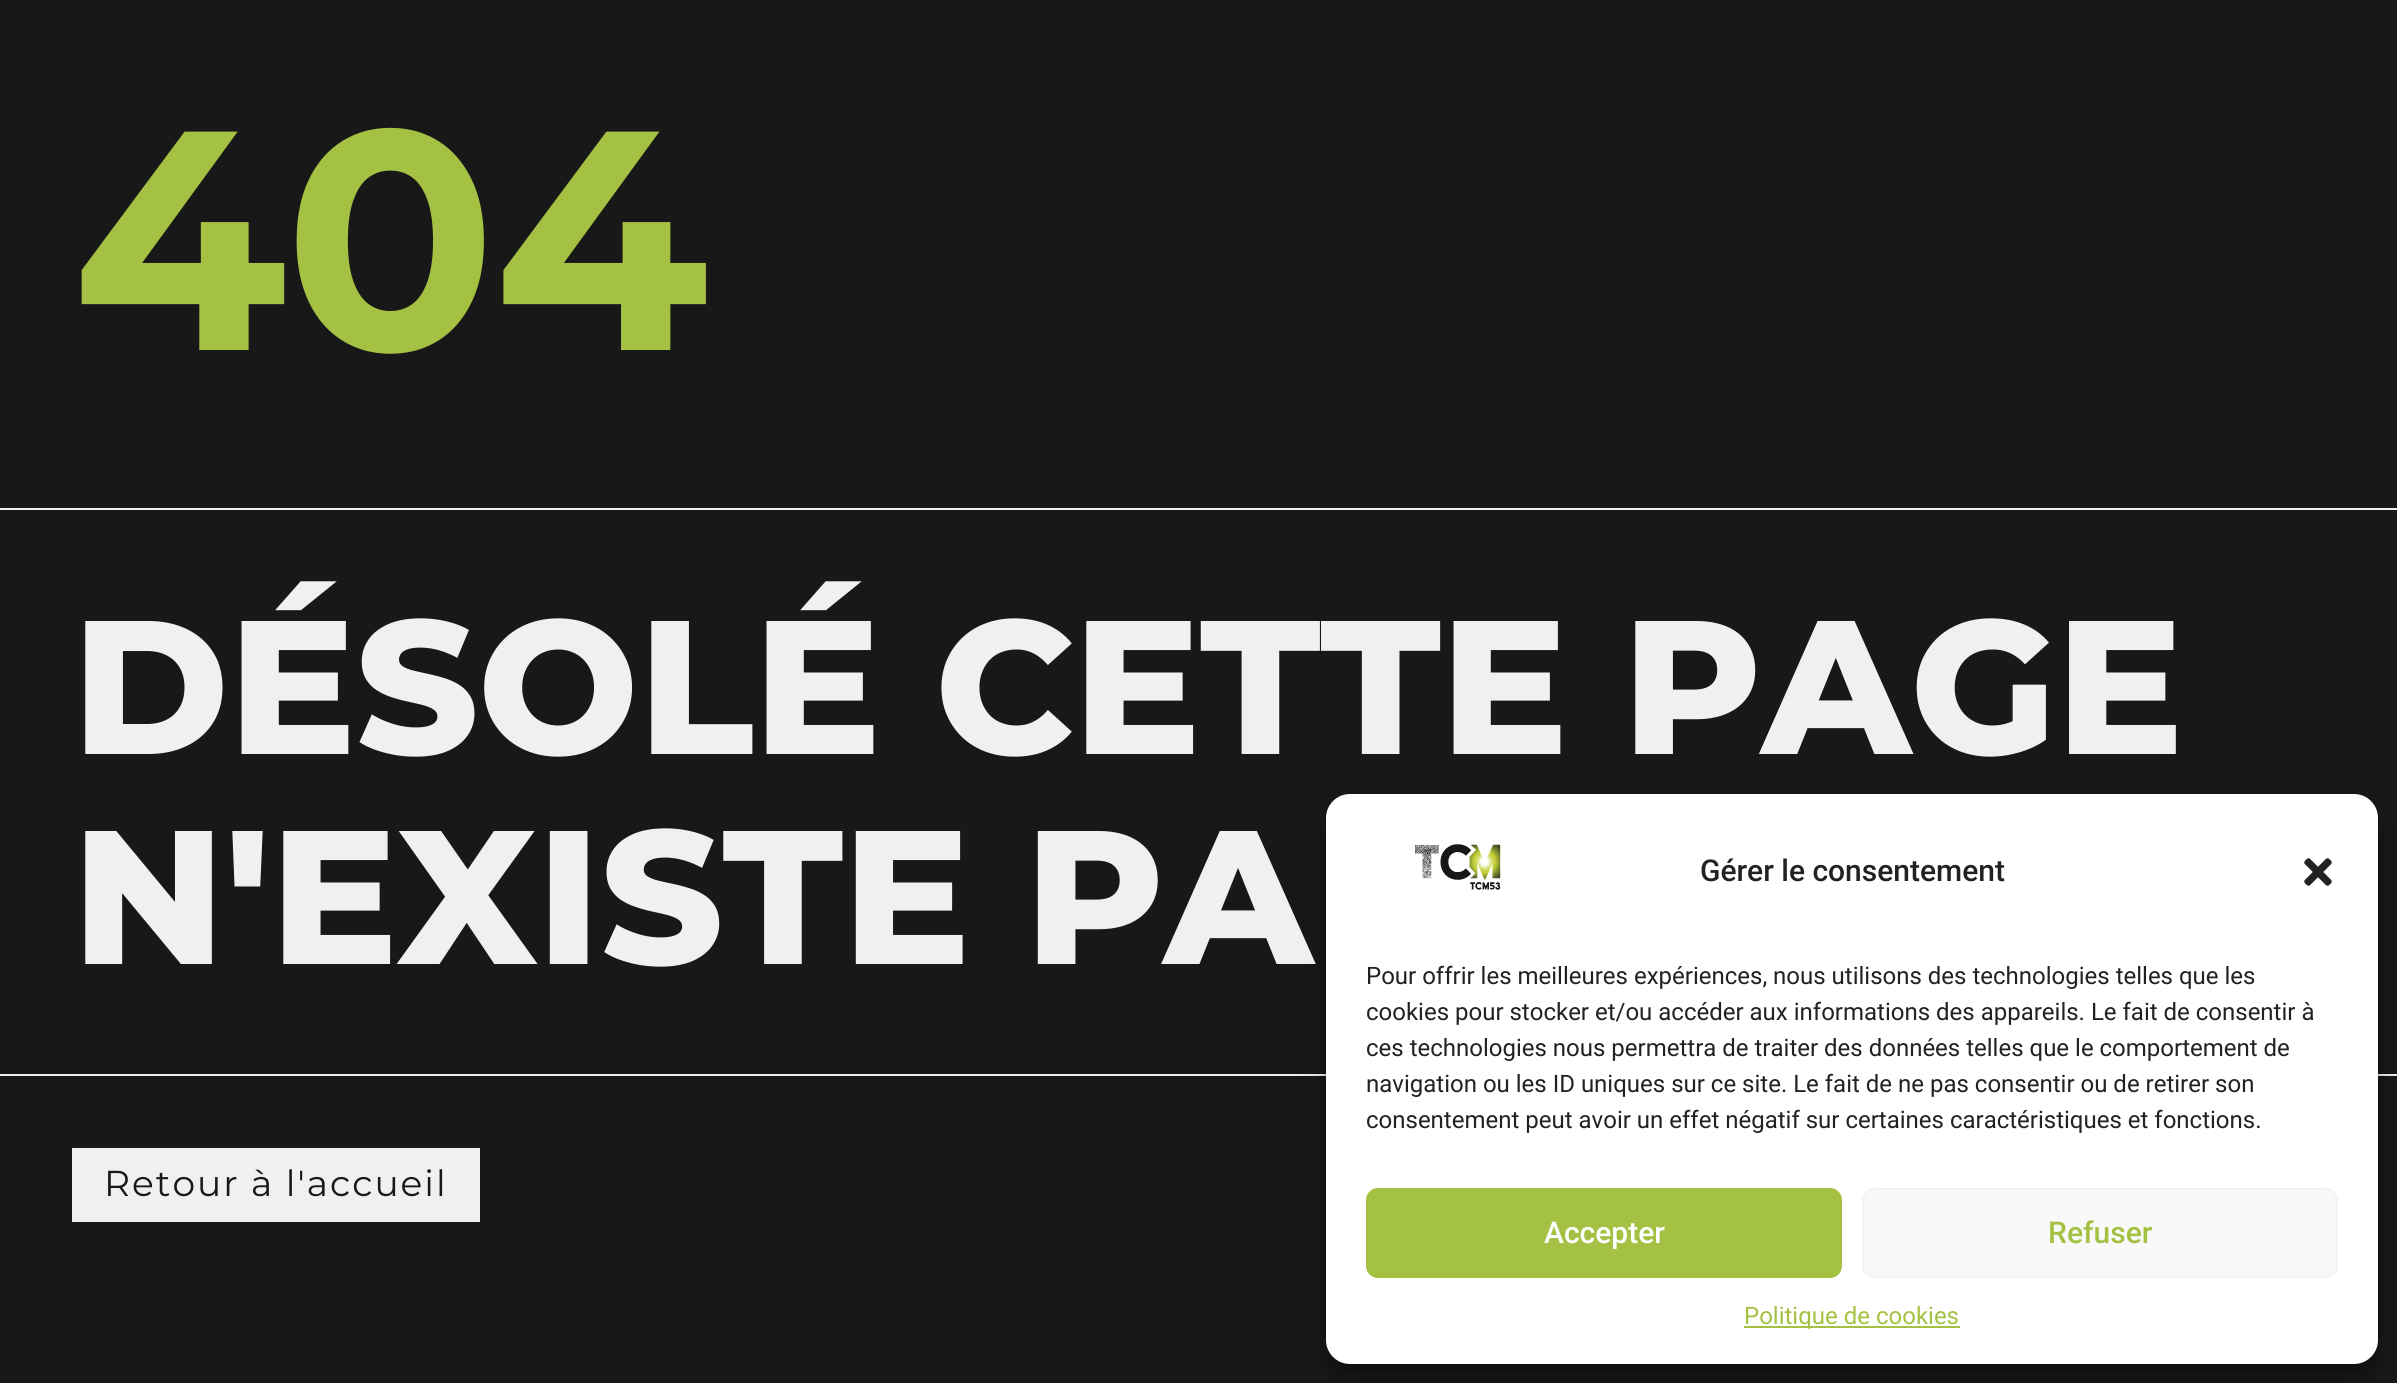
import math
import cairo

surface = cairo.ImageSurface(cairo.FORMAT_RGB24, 2397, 1383)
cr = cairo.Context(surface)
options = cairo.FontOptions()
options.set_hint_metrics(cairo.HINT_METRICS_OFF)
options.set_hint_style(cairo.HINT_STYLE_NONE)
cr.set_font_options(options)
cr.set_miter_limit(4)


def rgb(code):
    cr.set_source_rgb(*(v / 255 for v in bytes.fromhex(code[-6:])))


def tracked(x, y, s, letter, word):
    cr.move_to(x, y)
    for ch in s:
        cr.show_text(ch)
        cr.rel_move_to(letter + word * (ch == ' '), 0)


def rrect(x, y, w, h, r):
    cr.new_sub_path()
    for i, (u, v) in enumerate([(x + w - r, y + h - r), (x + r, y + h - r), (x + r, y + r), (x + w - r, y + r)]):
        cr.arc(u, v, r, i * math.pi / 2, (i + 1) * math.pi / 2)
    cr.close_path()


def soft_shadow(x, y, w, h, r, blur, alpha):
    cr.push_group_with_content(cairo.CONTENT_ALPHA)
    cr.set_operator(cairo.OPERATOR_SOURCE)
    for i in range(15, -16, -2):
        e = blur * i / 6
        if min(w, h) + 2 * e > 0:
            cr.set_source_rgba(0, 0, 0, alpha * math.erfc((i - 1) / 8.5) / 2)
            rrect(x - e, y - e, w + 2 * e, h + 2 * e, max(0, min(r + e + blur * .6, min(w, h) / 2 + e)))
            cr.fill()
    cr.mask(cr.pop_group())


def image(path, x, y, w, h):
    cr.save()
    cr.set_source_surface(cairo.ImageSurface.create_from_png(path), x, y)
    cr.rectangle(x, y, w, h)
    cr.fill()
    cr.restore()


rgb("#181818")
cr.paint()
for x, y, w, h, color in [
    (0, 508, 2397, 2, "#f0f0f0"),
    (0, 1074, 2397, 2, "#f0f0f0"),
    (72, 1148, 408, 74, "#f0f0f0"),
]:
    rgb(color)
    cr.rectangle(x, y, w, h)
    cr.fill()
rgb("#000000")
soft_shadow(1326, 806, 1052, 570, 24, 6, 0.23)
soft_shadow(1326, 814, 1052, 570, 24, 20, 0.19)
rgb("#ffffff")
rrect(1326, 794, 1052, 570, 24)
cr.fill()
image("img/1.png", 1415, 844, 86, 46)
image("img/2.png", 2304, 858, 28, 28)
rgb("#a5c143")
rrect(1367, 1189, 474, 88, 11)
cr.fill_preserve()
cr.stroke()
rgb("#f9f9f9")
rrect(1863, 1189, 474, 88, 11)
cr.fill_preserve()
rgb("#f2f2f2")
cr.stroke()
rgb("#a5c143")
cr.rectangle(1744, 1326, 216, 2)
cr.fill()
cr.select_font_face("Montserrat", cairo.FONT_SLANT_NORMAL, cairo.FONT_WEIGHT_BOLD)
cr.set_font_size(312)
tracked(72, 350, "404", -2.5, 0)
cr.select_font_face("Montserrat ExtraBold")
cr.set_font_size(190)
rgb("#f0f0f0")
tracked(72, 754, "DÉSOLÉ CETTE PAGE", -0.6, 0)
tracked(72, 964, "N'EXISTE PA", -0.6, 0)
cr.select_font_face("Montserrat")
cr.set_font_size(36)
rgb("#181818")
tracked(104, 1196, "Retour à l'accueil", 2, 0)
cr.select_font_face("Roboto Medium")
cr.set_font_size(30)
rgb("#222222")
cr.move_to(1700, 881)
cr.show_text("Gérer le consentement")
cr.select_font_face("Roboto")
cr.set_font_size(24)
for x, y, s in [
    (1366, 984, "Pour offrir les meilleures expériences, nous utilisons des technologies telles que les"),
    (1366, 1020, "cookies pour stocker et/ou accéder aux informations des appareils. Le fait de consentir à"),
    (1366, 1056, "ces technologies nous permettra de traiter des données telles que le comportement de"),
    (1366, 1092, "navigation ou les ID uniques sur ce site. Le fait de ne pas consentir ou de retirer son"),
    (1366, 1128, "consentement peut avoir un effet négatif sur certaines caractéristiques et fonctions."),
]:
    cr.move_to(x, y)
    cr.show_text(s)
cr.select_font_face("Roboto Medium")
cr.set_font_size(30)
rgb("#ffffff")
cr.move_to(1544, 1243)
cr.show_text("Accepter")
rgb("#a5c143")
cr.move_to(2048, 1243)
cr.show_text("Refuser")
cr.select_font_face("Roboto")
cr.set_font_size(24)
cr.move_to(1744, 1324)
cr.show_text("Politique de cookies")
surface.write_to_png("page.png")
